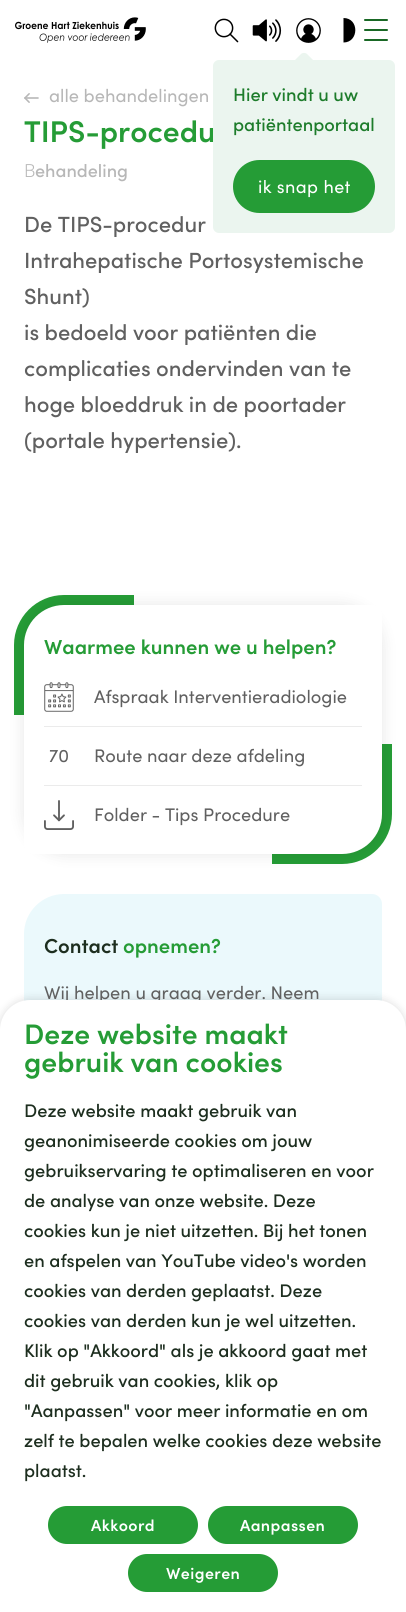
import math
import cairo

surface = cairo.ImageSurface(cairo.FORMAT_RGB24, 406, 1612)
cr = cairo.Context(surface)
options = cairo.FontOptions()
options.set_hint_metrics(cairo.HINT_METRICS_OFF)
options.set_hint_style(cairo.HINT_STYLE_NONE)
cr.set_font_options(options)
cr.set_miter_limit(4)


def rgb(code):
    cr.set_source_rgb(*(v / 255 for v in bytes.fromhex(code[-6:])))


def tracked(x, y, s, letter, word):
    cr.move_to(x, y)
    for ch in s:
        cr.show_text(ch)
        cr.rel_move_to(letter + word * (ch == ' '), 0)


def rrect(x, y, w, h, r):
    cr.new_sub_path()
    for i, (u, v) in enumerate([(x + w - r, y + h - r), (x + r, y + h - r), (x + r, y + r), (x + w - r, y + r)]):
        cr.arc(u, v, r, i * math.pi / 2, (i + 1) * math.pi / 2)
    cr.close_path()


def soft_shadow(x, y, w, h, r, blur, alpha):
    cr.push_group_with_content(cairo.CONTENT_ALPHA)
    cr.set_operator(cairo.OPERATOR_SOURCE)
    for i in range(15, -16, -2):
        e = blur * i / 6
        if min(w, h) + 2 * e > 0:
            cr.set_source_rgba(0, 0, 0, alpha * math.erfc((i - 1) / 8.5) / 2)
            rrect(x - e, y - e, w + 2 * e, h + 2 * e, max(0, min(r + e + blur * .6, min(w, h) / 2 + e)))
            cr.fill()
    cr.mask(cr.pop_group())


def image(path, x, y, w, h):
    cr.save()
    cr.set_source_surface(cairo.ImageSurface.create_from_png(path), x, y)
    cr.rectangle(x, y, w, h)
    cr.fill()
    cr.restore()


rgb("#ffffff")
cr.paint()
image("img/1.png", 15, 17, 131, 26)
image("img/2.png", 214, 18, 25, 25)
image("img/3.png", 252, 19, 30, 23)
image("img/4.png", 296, 18, 25, 25)
rgb("#000000")
cr.new_path()
cr.move_to(343.5, 18)
cr.curve_to(359.5, 18, 359, 42.5, 343.5, 42.5)
cr.close_path()
cr.fill()
rgb("#196825")
rrect(364, 19, 24, 2, 1)
cr.fill()
rrect(364, 29, 24, 2, 1)
cr.fill()
rrect(364, 39, 24, 2, 1)
cr.fill()
image("img/5.png", 24, 93, 15, 10)
rgb("#259c36")
cr.new_path()
cr.move_to(64, 595)
cr.line_to(134, 595)
cr.line_to(134, 715)
cr.line_to(14, 715)
cr.line_to(14, 645)
cr.curve_to(14, 617.5, 36.5, 595, 64, 595)
cr.close_path()
cr.fill()
cr.new_path()
cr.move_to(272, 744)
cr.line_to(392, 744)
cr.line_to(392, 814)
cr.curve_to(392, 841.5, 369.5, 864, 342, 864)
cr.line_to(272, 864)
cr.close_path()
cr.fill()
rgb("#000000")
soft_shadow(24, 605, 358, 249, 40, 7.5, 0.1)
rgb("#ffffff")
cr.new_path()
cr.move_to(64, 605)
cr.line_to(372, 605)
cr.curve_to(377.5, 605, 382, 609.5, 382, 615)
cr.line_to(382, 814)
cr.curve_to(382, 836, 364, 854, 342, 854)
cr.line_to(34, 854)
cr.curve_to(28.5, 854, 24, 849.5, 24, 844)
cr.line_to(24, 645)
cr.curve_to(24, 623, 42, 605, 64, 605)
cr.close_path()
cr.fill()
image("img/6.png", 44, 682, 30, 30)
rgb("#ebebeb")
cr.rectangle(44, 726, 318, 1)
cr.fill()
cr.rectangle(44, 785, 318, 1)
cr.fill()
image("img/7.png", 44, 800, 30, 30)
rgb("#ebf9fc")
cr.new_path()
cr.move_to(64, 894)
cr.line_to(372, 894)
cr.curve_to(377.5, 894, 382, 898.5, 382, 904)
cr.line_to(382, 1209)
cr.curve_to(382, 1231, 364, 1249, 342, 1249)
cr.line_to(34, 1249)
cr.curve_to(28.5, 1249, 24, 1244.5, 24, 1239)
cr.line_to(24, 934)
cr.curve_to(24, 912, 42, 894, 64, 894)
cr.close_path()
cr.fill()
rgb("#000000")
soft_shadow(0, 1000, 406, 612, 30, 5, 0.16)
cr.select_font_face("Sofia")
cr.set_font_size(18.25)
rgb("#b7b7b7")
cr.move_to(49, 102)
cr.show_text("alle behandelingen")
cr.select_font_face("Sofia SemiBold")
cr.set_font_size(30)
rgb("#259c36")
cr.move_to(24, 142)
cr.show_text("TIPS-procedu")
rgb("#ebf5ef")
rrect(213, 60, 182, 173, 6)
cr.fill()
rgb("#259c36")
rrect(233, 160, 142, 53, 26.5)
cr.fill()
cr.select_font_face("Sofia")
cr.set_font_size(18)
rgb("#ffffff")
tracked(258, 193, "ik snap het", 0.4, 0)
rgb("#ebf5ef")
cr.new_path()
cr.move_to(307, 54)
cr.line_to(314, 61)
cr.curve_to(315.5, 62.5, 315.5, 65.5, 314, 67)
cr.line_to(307, 74)
cr.curve_to(305.5, 75.5, 302.5, 75.5, 301, 74)
cr.line_to(294, 67)
cr.curve_to(292.5, 65.5, 292.5, 62.5, 294, 61)
cr.line_to(301, 54)
cr.curve_to(302.5, 52.5, 305.5, 52.5, 307, 54)
cr.close_path()
cr.fill()
cr.select_font_face("Sofia Medium")
cr.set_font_size(18.25)
rgb("#1d7c2b")
cr.move_to(233, 131)
cr.show_text("patiëntenportaal")
cr.move_to(233, 101)
cr.show_text("Hier vindt u uw")
cr.select_font_face("Noto Sans Light")
cr.set_font_size(18)
rgb("#b7b7b7")
cr.move_to(24, 177)
cr.show_text("B")
cr.select_font_face("Sofia Medium")
cr.move_to(35, 177)
cr.show_text("ehandeling")
cr.set_font_size(22)
rgb("#606060")
for x, y, s in [
    (24, 232, "De TIPS-procedur"),
    (24, 268, "Intrahepatische Portosystemische"),
    (24, 304, "Shunt)"),
    (24, 340, "is bedoeld voor patiënten die"),
    (24, 376, "complicaties ondervinden van te"),
    (24, 412, "hoge bloeddruk in de poortader"),
    (24, 448, "(portale hypertensie)."),
]:
    cr.move_to(x, y)
    cr.show_text(s)
cr.select_font_face("Sofia SemiBold")
cr.set_font_size(20.25)
rgb("#259c36")
cr.move_to(44, 654)
cr.show_text("Waarmee kunnen we u helpen?")
cr.select_font_face("Sofia")
cr.set_font_size(18.25)
rgb("#606060")
for x, y, s in [
    (94, 703, "Afspraak Interventieradiologie"),
    (49, 762, "70"),
    (94, 762, "Route naar deze afdeling"),
    (94, 821, "Folder - Tips Procedure"),
]:
    cr.move_to(x, y)
    cr.show_text(s)
cr.select_font_face("Sofia SemiBold")
cr.set_font_size(20.25)
rgb("#1d2e1f")
cr.move_to(44, 953)
cr.show_text("Contact")
rgb("#259c36")
cr.move_to(123, 953)
cr.show_text("opnemen?")
cr.select_font_face("Sofia")
cr.set_font_size(18.25)
rgb("#606060")
cr.move_to(44, 999)
cr.show_text("Wij helpen u graag verder. Neem")
rgb("#ffffff")
cr.new_path()
cr.move_to(30, 1000)
cr.line_to(376, 1000)
cr.curve_to(392.5, 1000, 406, 1013.5, 406, 1030)
cr.line_to(406, 1612)
cr.line_to(0, 1612)
cr.line_to(0, 1030)
cr.curve_to(0, 1013.5, 13.5, 1000, 30, 1000)
cr.close_path()
cr.fill()
cr.select_font_face("Sofia SemiBold")
cr.set_font_size(28.25)
rgb("#259c36")
cr.move_to(24, 1044)
cr.show_text("Deze website maakt")
cr.move_to(24, 1072)
cr.show_text("gebruik van cookies")
cr.select_font_face("Sofia Medium")
cr.set_font_size(18.25)
rgb("#1d2e1f")
for x, y, s in [
    (24, 1117, "Deze website maakt gebruik van"),
    (24, 1147, "geanonimiseerde cookies om jouw"),
    (24, 1177, "gebruikservaring te optimaliseren en voor"),
    (24, 1207, "de analyse van onze website. Deze"),
    (24, 1237, "cookies kun je niet uitzetten. Bij het tonen"),
    (24, 1267, "en afspelen van YouTube video's worden"),
    (24, 1297, "cookies van derden geplaatst. Deze"),
    (24, 1327, "cookies van derden kun je wel uitzetten."),
    (24, 1357, "Klik op \"Akkoord\" als je akkoord gaat met"),
    (24, 1387, "dit gebruik van cookies, klik op"),
    (24, 1417, "\"Aanpassen\" voor meer informatie en om"),
    (24, 1447, "zelf te bepalen welke cookies deze website"),
    (24, 1477, "plaatst."),
]:
    cr.move_to(x, y)
    cr.show_text(s)
rgb("#259c36")
rrect(48, 1506, 150, 38, 19)
cr.fill()
cr.select_font_face("Sofia SemiBold")
cr.set_font_size(16)
rgb("#ffffff")
tracked(91, 1531, "Akkoord", 0.4, 0)
rgb("#259c36")
rrect(208, 1506, 150, 38, 19)
cr.fill()
rgb("#ffffff")
tracked(240, 1531, "Aanpassen", 0.4, 0)
rgb("#259c36")
rrect(128, 1554, 150, 38, 19)
cr.fill()
rgb("#ffffff")
tracked(166, 1579, "Weigeren", 0.4, 0)
surface.write_to_png("page.png")
